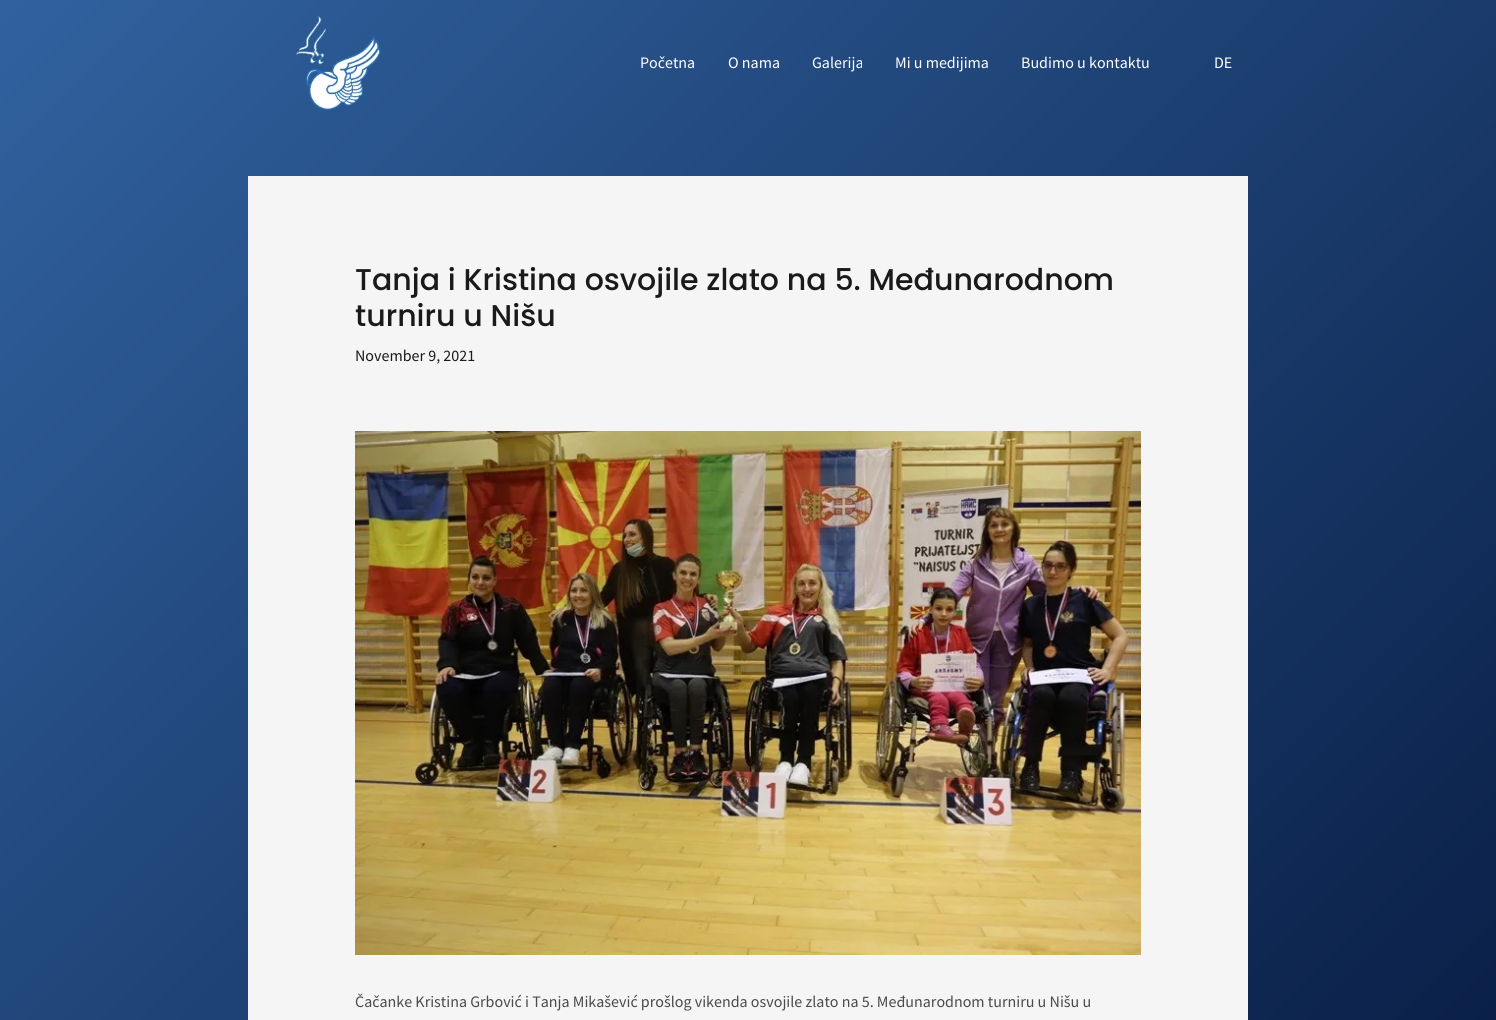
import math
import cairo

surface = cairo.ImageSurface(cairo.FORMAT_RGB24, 1496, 1020)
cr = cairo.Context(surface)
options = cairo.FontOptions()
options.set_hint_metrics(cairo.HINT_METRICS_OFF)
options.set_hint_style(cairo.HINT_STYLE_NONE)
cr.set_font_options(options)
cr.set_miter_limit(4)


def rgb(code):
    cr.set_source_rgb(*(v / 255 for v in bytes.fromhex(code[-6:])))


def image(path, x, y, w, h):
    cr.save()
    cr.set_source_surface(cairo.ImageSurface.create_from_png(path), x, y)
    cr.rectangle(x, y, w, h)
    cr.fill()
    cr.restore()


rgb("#ffffff")
cr.paint()
gradient = cairo.LinearGradient(119, -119, 1377, 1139)
gradient.add_color_stop_rgba(0, 0.192, 0.384, 0.624, 1)
gradient.add_color_stop_rgba(1, 0.039, 0.125, 0.282, 1)
cr.set_source(gradient)
cr.rectangle(0, 0, 1496, 1020)
cr.fill()
image("img/1.png", 296, 16, 85, 94)
rgb("#f5f5f5")
cr.rectangle(248, 176, 1000, 844)
cr.fill()
image("img/2.png", 355, 431, 786, 524)
cr.select_font_face("Source Sans Pro")
cr.set_font_size(16)
rgb("#ffffff")
for x, y, s in [
    (640, 68, "Početna"),
    (728, 68, "O nama"),
    (812, 68, "Galerija"),
    (895, 68, "Mi u medijima"),
    (1021, 68, "Budimo u kontaktu"),
    (1214, 68, "DE"),
]:
    cr.move_to(x, y)
    cr.show_text(s)
cr.select_font_face("Poppins Medium")
cr.set_font_size(30)
rgb("#1a1a1a")
cr.move_to(355, 290)
cr.show_text("Tanja i Kristina osvojile zlato na 5. Međunarodnom")
cr.move_to(355, 326)
cr.show_text("turniru u Nišu")
cr.select_font_face("Source Sans Pro")
cr.set_font_size(16)
cr.move_to(355, 361)
cr.show_text("November 9, 2021")
rgb("#4a4a4a")
cr.move_to(355, 1007)
cr.show_text("Čačanke Kristina Grbović i Tanja Mikašević prošlog vikenda osvojile zlato na 5. Međunarodnom turniru u Nišu u")
surface.write_to_png("page.png")
